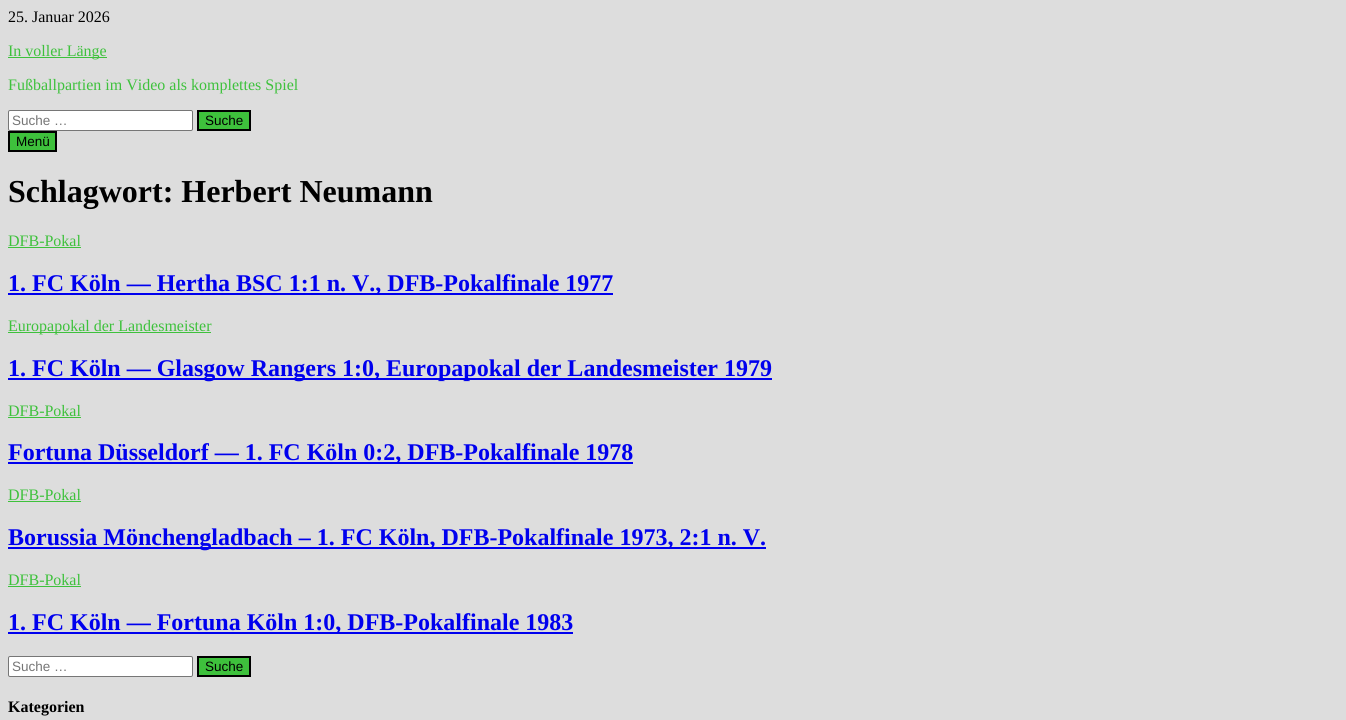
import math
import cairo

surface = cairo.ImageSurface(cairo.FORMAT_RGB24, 1346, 720)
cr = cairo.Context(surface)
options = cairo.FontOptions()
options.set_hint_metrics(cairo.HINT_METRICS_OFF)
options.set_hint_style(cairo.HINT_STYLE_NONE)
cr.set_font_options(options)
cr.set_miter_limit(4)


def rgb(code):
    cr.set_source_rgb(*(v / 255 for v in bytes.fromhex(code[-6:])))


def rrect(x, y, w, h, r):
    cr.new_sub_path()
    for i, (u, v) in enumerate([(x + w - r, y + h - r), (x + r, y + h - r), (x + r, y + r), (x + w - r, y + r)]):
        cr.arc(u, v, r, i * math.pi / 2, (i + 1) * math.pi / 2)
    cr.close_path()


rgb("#dddddd")
cr.paint()
rgb("#3ec13c")
cr.rectangle(8, 57, 99, 1)
cr.fill()
rgb("#ffffff")
rrect(8.5, 110.5, 184, 20, 1.5)
cr.fill_preserve()
rgb("#767676")
cr.set_line_width(1)
cr.stroke()
rgb("#3ec13c")
cr.rectangle(198, 111, 52, 19)
cr.fill_preserve()
rgb("#000000")
cr.set_line_width(2)
cr.stroke()
rgb("#3ec13c")
cr.rectangle(9, 132, 47, 19)
cr.fill_preserve()
rgb("#000000")
cr.stroke()
for x, y, w, h, color in [
    (8, 247, 73, 1, "#3ec13c"),
    (8, 293, 605, 2, "#0000ee"),
    (8, 332, 203, 1, "#3ec13c"),
    (8, 378, 764, 2, "#0000ee"),
    (8, 417, 73, 1, "#3ec13c"),
    (8, 462, 625, 2, "#0000ee"),
    (8, 501, 73, 1, "#3ec13c"),
    (8, 547, 758, 2, "#0000ee"),
    (8, 586, 73, 1, "#3ec13c"),
    (8, 632, 565, 2, "#0000ee"),
]:
    rgb(color)
    cr.rectangle(x, y, w, h)
    cr.fill()
rgb("#ffffff")
rrect(8.5, 656.5, 184, 20, 1.5)
cr.fill_preserve()
rgb("#767676")
cr.set_line_width(1)
cr.stroke()
rgb("#3ec13c")
cr.rectangle(198, 657, 52, 19)
cr.fill_preserve()
rgb("#000000")
cr.set_line_width(2)
cr.stroke()
cr.select_font_face("Liberation Serif")
cr.set_font_size(16)
cr.move_to(8, 22)
cr.show_text("25. Januar 2026")
rgb("#3ec13c")
cr.move_to(8, 56)
cr.show_text("In voller Länge")
cr.move_to(8, 90)
cr.show_text("Fußballpartien im Video als komplettes Spiel")
cr.select_font_face("Liberation Sans")
cr.set_font_size(13.5)
rgb("#757575")
cr.move_to(12, 125)
cr.show_text("Suche …")
rgb("#000000")
cr.move_to(205, 125)
cr.show_text("Suche")
cr.move_to(16, 146)
cr.show_text("Menü")
cr.select_font_face("Liberation Serif", cairo.FONT_SLANT_NORMAL, cairo.FONT_WEIGHT_BOLD)
cr.set_font_size(32)
cr.move_to(8, 202)
cr.show_text("Schlagwort: Herbert Neumann")
cr.select_font_face("Liberation Serif")
cr.set_font_size(16)
rgb("#3ec13c")
cr.move_to(8, 246)
cr.show_text("DFB-Pokal")
cr.select_font_face("Liberation Serif", cairo.FONT_SLANT_NORMAL, cairo.FONT_WEIGHT_BOLD)
cr.set_font_size(24)
rgb("#0000ee")
cr.move_to(8, 291)
cr.show_text("1. FC Köln — Hertha BSC 1:1 n. V., DFB-Pokalfinale 1977")
cr.select_font_face("Liberation Serif")
cr.set_font_size(16)
rgb("#3ec13c")
cr.move_to(8, 331)
cr.show_text("Europapokal der Landesmeister")
cr.select_font_face("Liberation Serif", cairo.FONT_SLANT_NORMAL, cairo.FONT_WEIGHT_BOLD)
cr.set_font_size(24)
rgb("#0000ee")
cr.move_to(8, 376)
cr.show_text("1. FC Köln — Glasgow Rangers 1:0, Europapokal der Landesmeister 1979")
cr.select_font_face("Liberation Serif")
cr.set_font_size(16)
rgb("#3ec13c")
cr.move_to(8, 416)
cr.show_text("DFB-Pokal")
cr.select_font_face("Liberation Serif", cairo.FONT_SLANT_NORMAL, cairo.FONT_WEIGHT_BOLD)
cr.set_font_size(24)
rgb("#0000ee")
cr.move_to(8, 460)
cr.show_text("Fortuna Düsseldorf — 1. FC Köln 0:2, DFB-Pokalfinale 1978")
cr.select_font_face("Liberation Serif")
cr.set_font_size(16)
rgb("#3ec13c")
cr.move_to(8, 500)
cr.show_text("DFB-Pokal")
cr.select_font_face("Liberation Serif", cairo.FONT_SLANT_NORMAL, cairo.FONT_WEIGHT_BOLD)
cr.set_font_size(24)
rgb("#0000ee")
cr.move_to(8, 545)
cr.show_text("Borussia Mönchengladbach – 1. FC Köln, DFB-Pokalfinale 1973, 2:1 n. V.")
cr.select_font_face("Liberation Serif")
cr.set_font_size(16)
rgb("#3ec13c")
cr.move_to(8, 585)
cr.show_text("DFB-Pokal")
cr.select_font_face("Liberation Serif", cairo.FONT_SLANT_NORMAL, cairo.FONT_WEIGHT_BOLD)
cr.set_font_size(24)
rgb("#0000ee")
cr.move_to(8, 630)
cr.show_text("1. FC Köln — Fortuna Köln 1:0, DFB-Pokalfinale 1983")
cr.select_font_face("Liberation Sans")
cr.set_font_size(13.5)
rgb("#757575")
cr.move_to(12, 671)
cr.show_text("Suche …")
rgb("#000000")
cr.move_to(205, 671)
cr.show_text("Suche")
cr.select_font_face("Liberation Serif", cairo.FONT_SLANT_NORMAL, cairo.FONT_WEIGHT_BOLD)
cr.set_font_size(16)
cr.move_to(8, 712)
cr.show_text("Kategorien")
surface.write_to_png("page.png")
